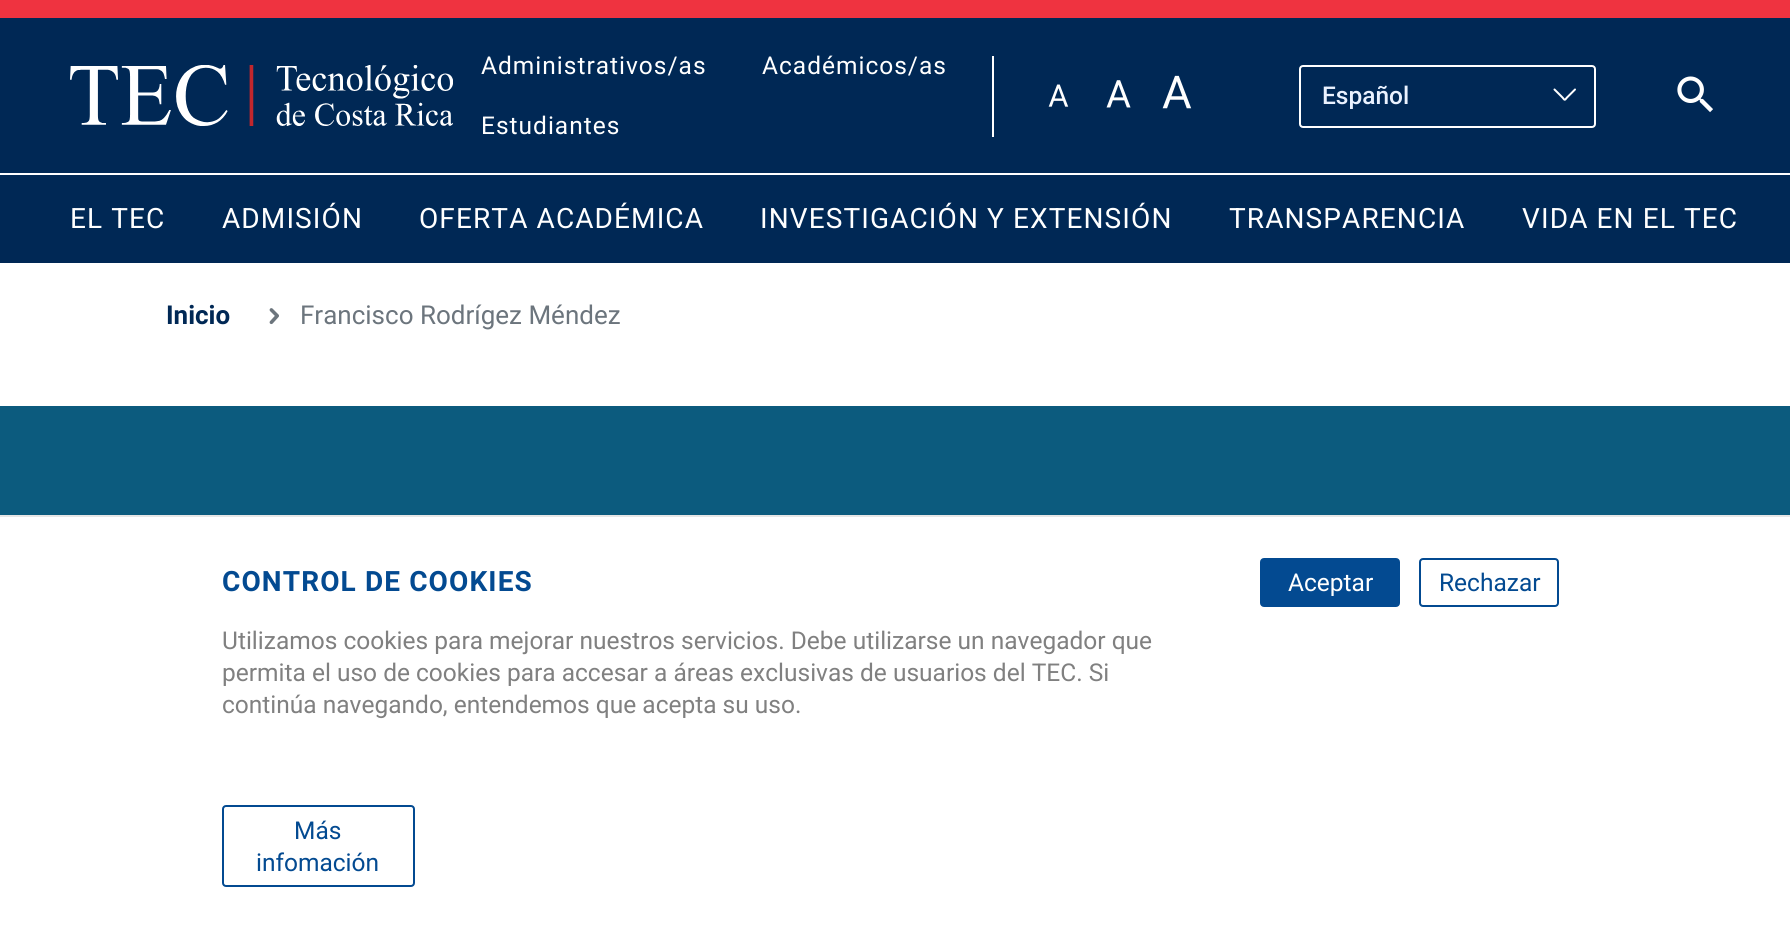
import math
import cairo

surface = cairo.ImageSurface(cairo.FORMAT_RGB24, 1790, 925)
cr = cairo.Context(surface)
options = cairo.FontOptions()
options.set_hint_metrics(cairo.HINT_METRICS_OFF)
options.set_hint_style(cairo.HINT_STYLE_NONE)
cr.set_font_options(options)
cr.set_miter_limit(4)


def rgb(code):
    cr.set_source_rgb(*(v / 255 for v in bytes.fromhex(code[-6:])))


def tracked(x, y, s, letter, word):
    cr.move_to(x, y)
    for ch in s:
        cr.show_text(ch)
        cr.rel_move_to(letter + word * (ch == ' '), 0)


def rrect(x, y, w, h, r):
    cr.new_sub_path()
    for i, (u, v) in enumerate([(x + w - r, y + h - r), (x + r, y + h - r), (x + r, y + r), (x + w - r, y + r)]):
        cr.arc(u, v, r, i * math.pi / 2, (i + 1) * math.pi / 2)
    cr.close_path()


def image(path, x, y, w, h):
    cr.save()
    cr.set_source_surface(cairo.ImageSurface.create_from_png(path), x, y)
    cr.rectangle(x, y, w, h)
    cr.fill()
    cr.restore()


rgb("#ffffff")
cr.paint()
rgb("#002855")
cr.rectangle(0, 18, 1790, 155)
cr.fill()
rgb("#ef3340")
cr.rectangle(0, 0, 1790, 18)
cr.fill()
image("img/1.png", 70, 65, 383, 61)
rgb("#ffffff")
cr.rectangle(992, 56, 2, 81)
cr.fill()
image("img/2.png", 1048, 84, 21, 23)
image("img/3.png", 1106, 80, 25, 28)
image("img/4.png", 1162, 75, 30, 34)
cr.new_path()
cr.move_to(1575, 89.5)
cr.line_to(1567, 97.5)
cr.curve_to(1564.5, 100.5, 1565, 100.5, 1562.5, 97.5)
cr.line_to(1554.5, 89.5)
cr.set_line_cap(cairo.LINE_CAP_ROUND)
cr.stroke()
rrect(1300, 66, 295, 61, 3)
cr.set_line_cap(cairo.LINE_CAP_BUTT)
cr.stroke()
image("img/5.png", 1677, 76, 36, 37)
rgb("#002855")
cr.rectangle(0, 175, 1790, 88)
cr.fill()
image("img/6.png", 269, 308, 10, 17)
rgb("#0c5b7e")
cr.rectangle(0, 406, 1790, 109)
cr.fill()
rgb("#e6e6e6")
cr.rectangle(0, 515, 1790, 2)
cr.fill()
rrect(223, 806, 191, 80, 3)
rgb("#034a91")
cr.stroke()
rrect(1261, 559, 138, 47, 3)
cr.fill_preserve()
cr.stroke()
rrect(1420, 559, 138, 47, 3)
cr.stroke()
cr.select_font_face("Roboto")
cr.set_font_size(24.5)
rgb("#ffffff")
for x, y, s in [
    (481, 74, "Administrativos/as"),
    (762, 74, "Académicos/as"),
    (481, 134, "Estudiantes"),
]:
    tracked(x, y, s, 1, 0)
cr.select_font_face("Roboto Medium")
rgb("#eaf2ff")
cr.move_to(1322, 104)
cr.show_text("Español")
cr.select_font_face("Roboto")
cr.set_font_size(28)
rgb("#ffffff")
for x, y, s in [
    (70, 228, "EL TEC"),
    (222, 228, "ADMISIÓN"),
    (419, 228, "OFERTA ACADÉMICA"),
    (760, 228, "INVESTIGACIÓN Y EXTENSIÓN"),
    (1229, 228, "TRANSPARENCIA"),
    (1522, 228, "VIDA EN EL TEC"),
]:
    tracked(x, y, s, 1.1, 0)
cr.select_font_face("Roboto", cairo.FONT_SLANT_NORMAL, cairo.FONT_WEIGHT_BOLD)
cr.set_font_size(26)
rgb("#002855")
cr.move_to(166, 324)
cr.show_text("Inicio")
cr.select_font_face("Roboto")
rgb("#6c757d")
cr.move_to(300, 324)
cr.show_text("Francisco Rodrígez Méndez")
cr.select_font_face("Roboto", cairo.FONT_SLANT_NORMAL, cairo.FONT_WEIGHT_BOLD)
cr.set_font_size(28)
rgb("#034a91")
tracked(222, 591, "CONTROL DE COOKIES", 1.1, 0)
cr.select_font_face("Roboto")
cr.set_font_size(24.5)
rgb("#808080")
for x, y, s in [
    (222, 649, "Utilizamos cookies para mejorar nuestros servicios. Debe utilizarse un navegador que"),
    (222, 681, "permita el uso de cookies para accesar a áreas exclusivas de usuarios del TEC. Si"),
    (222, 713, "continúa navegando, entendemos que acepta su uso."),
]:
    cr.move_to(x, y)
    cr.show_text(s)
rgb("#034a91")
cr.move_to(294, 839)
cr.show_text("Más")
cr.move_to(256, 871)
cr.show_text("infomación")
rgb("#ffffff")
cr.move_to(1288, 591)
cr.show_text("Aceptar")
rgb("#034a91")
cr.move_to(1439, 591)
cr.show_text("Rechazar")
surface.write_to_png("page.png")
